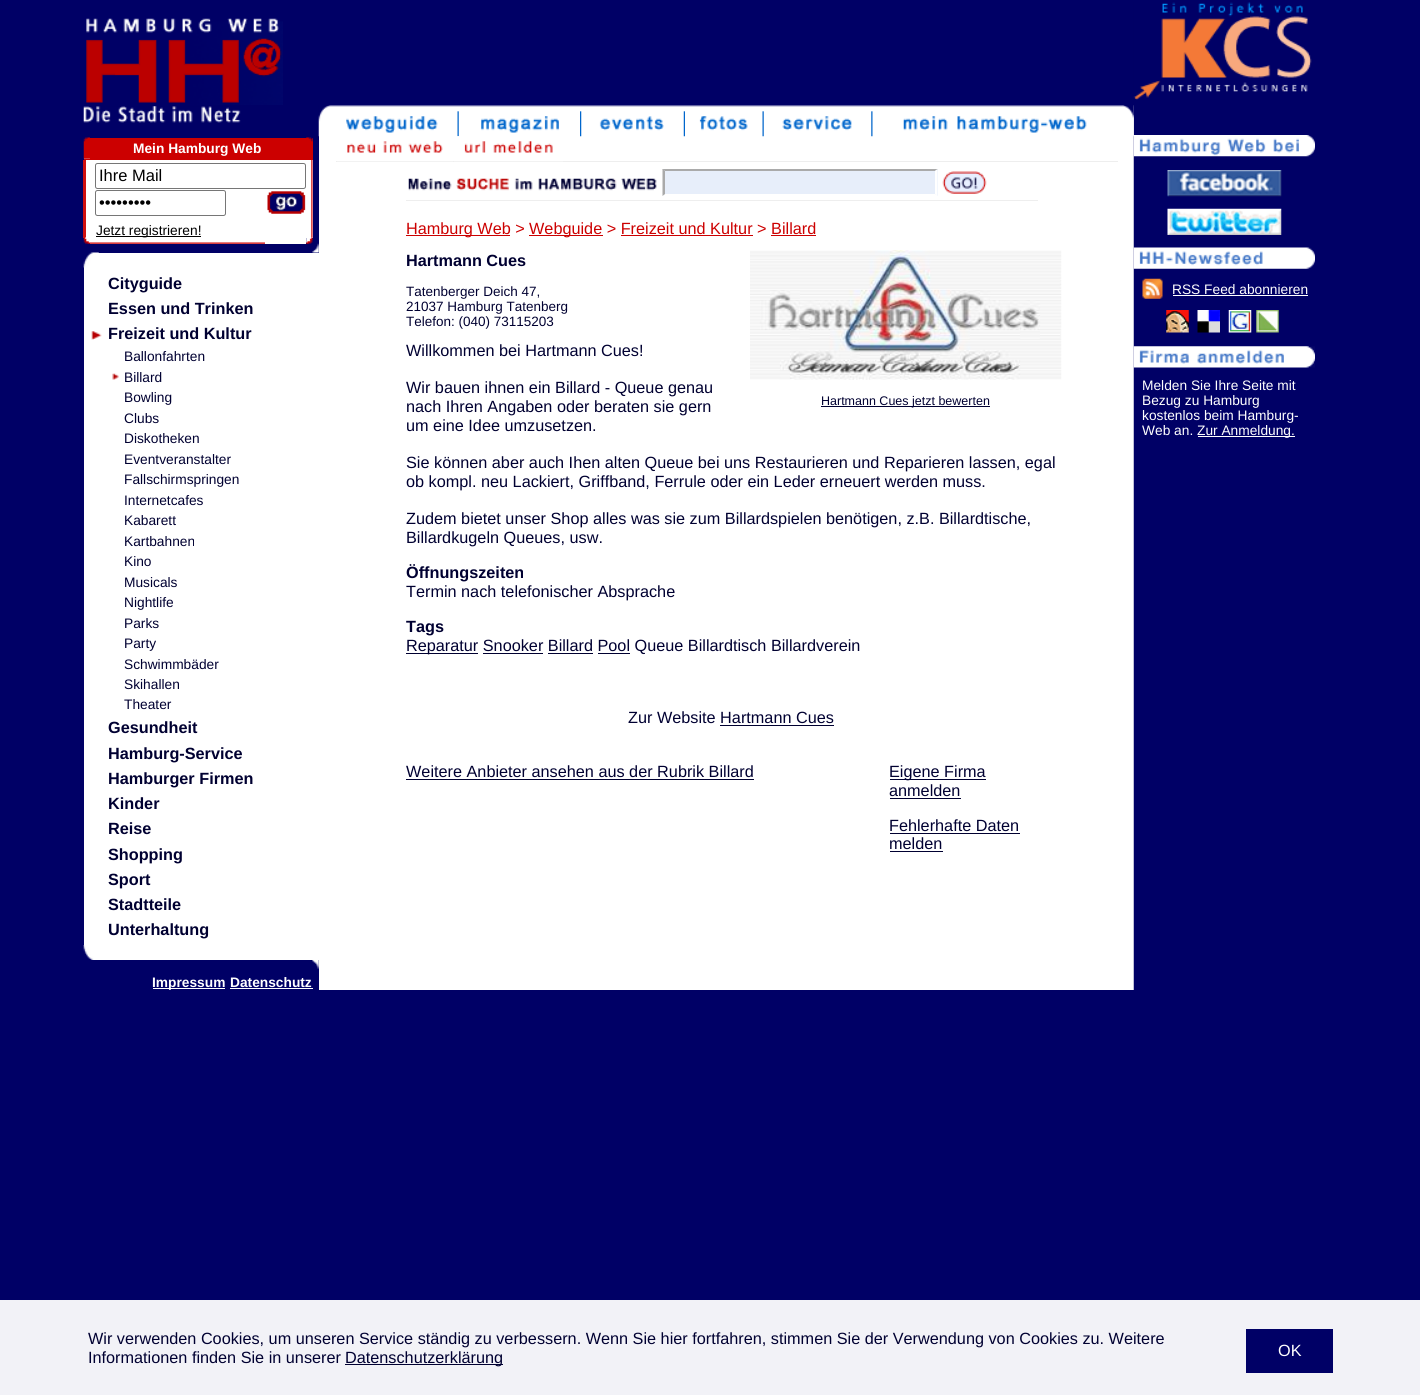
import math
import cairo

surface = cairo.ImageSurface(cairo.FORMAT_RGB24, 1420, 1395)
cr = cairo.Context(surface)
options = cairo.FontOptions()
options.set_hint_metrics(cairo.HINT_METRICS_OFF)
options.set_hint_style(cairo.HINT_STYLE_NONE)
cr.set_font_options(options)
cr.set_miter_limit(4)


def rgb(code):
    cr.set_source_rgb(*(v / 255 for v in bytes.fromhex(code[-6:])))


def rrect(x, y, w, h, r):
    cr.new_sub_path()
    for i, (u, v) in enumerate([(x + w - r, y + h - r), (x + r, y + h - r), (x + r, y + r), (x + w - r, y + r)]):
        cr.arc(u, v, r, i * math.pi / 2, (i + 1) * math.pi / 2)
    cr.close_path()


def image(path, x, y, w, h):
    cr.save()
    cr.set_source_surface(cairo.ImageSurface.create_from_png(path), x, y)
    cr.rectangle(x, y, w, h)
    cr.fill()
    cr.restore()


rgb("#000066")
cr.paint()
rgb("#ffffff")
cr.rectangle(319, 105, 815, 885)
cr.fill()
image("img/1.png", 86, 18, 197, 87)
image("img/2.png", 83, 106, 158, 17)
cr.rectangle(84, 158, 229, 86)
cr.fill()
image("img/3.png", 83, 137, 7, 22)
rgb("#cc0000")
cr.rectangle(90, 138, 223, 21)
cr.fill()
image("img/4.png", 306, 137, 7, 5)
cr.rectangle(84, 159, 229, 1)
cr.fill()
rgb("#cf0f0f")
cr.rectangle(83, 160, 3, 78)
cr.fill()
rrect(95.5, 163.5, 210, 25, 2)
rgb("#767676")
cr.set_line_width(1)
cr.stroke()
rrect(95.5, 190.5, 130, 25, 2)
cr.stroke()
image("img/5.png", 267, 191, 39, 23)
rgb("#000000")
cr.rectangle(96, 236, 105, 1)
cr.fill()
image("img/6.png", 311, 160, 2, 78)
rgb("#000066")
cr.rectangle(84, 242, 6, 2)
cr.fill()
image("img/7.png", 83, 237, 7, 7)
cr.rectangle(306, 238, 7, 6)
cr.fill()
image("img/9.png", 306, 237, 7, 7)
image("img/10.png", 310, 243, 9, 10)
rgb("#ffffff")
cr.rectangle(84, 253, 235, 692)
cr.fill()
image("img/11.png", 83, 252, 16, 16)
image("img/12.png", 91, 331, 11, 9)
image("img/13.png", 112, 373, 7, 7)
cr.rectangle(94, 945, 225, 15)
cr.fill()
image("img/14.png", 83, 945, 11, 15)
image("img/15.png", 312, 960, 7, 9)
cr.rectangle(153, 988, 72, 1)
cr.fill()
cr.rectangle(230, 988, 83, 1)
cr.fill()
image("img/16.png", 318, 105, 816, 32)
image("img/17.png", 346, 116, 92, 17)
image("img/18.png", 457, 111, 2, 26)
image("img/19.png", 481, 116, 78, 17)
image("img/20.png", 580, 111, 2, 26)
image("img/21.png", 599, 116, 65, 15)
image("img/22.png", 683, 111, 2, 26)
image("img/23.png", 699, 116, 49, 15)
image("img/18.png", 762, 111, 2, 26)
image("img/24.png", 782, 116, 70, 15)
image("img/25.png", 871, 111, 2, 26)
image("img/26.png", 903, 116, 184, 17)
rgb("#eeeeee")
cr.rectangle(336, 161, 782, 1)
cr.fill()
image("img/27.png", 337, 141, 116, 21)
image("img/28.png", 454, 136, 109, 26)
cr.set_source_rgba(0, 0, 0.392, 0.25)
cr.rectangle(1133, 105, 1, 885)
cr.fill()
image("img/34.png", 1133, 135, 182, 22)
image("img/29.png", 1123, 105, 11, 32)
rgb("#eeeeee")
cr.rectangle(406, 200, 632, 1)
cr.fill()
image("img/30.png", 408, 178, 249, 13)
rgb("#e7eefa")
cr.rectangle(663, 169, 275, 27)
cr.fill()
rgb("#aaaaaa")
cr.new_path()
cr.move_to(662, 169)
cr.line_to(938, 169)
cr.line_to(935, 171)
cr.line_to(665, 171)
cr.close_path()
cr.fill()
rgb("#ffffff")
cr.new_path()
cr.move_to(937.5, 169)
cr.line_to(937.5, 196)
cr.line_to(935, 194)
cr.line_to(935, 171)
cr.close_path()
cr.fill()
cr.new_path()
cr.move_to(938, 196)
cr.line_to(662, 196)
cr.line_to(665, 194)
cr.line_to(935, 194)
cr.close_path()
cr.fill()
rgb("#aaaaaa")
cr.new_path()
cr.move_to(662.5, 196)
cr.line_to(662.5, 169)
cr.line_to(665, 171)
cr.line_to(665, 194)
cr.close_path()
cr.fill()
image("img/31.png", 942, 171, 45, 23)
for x, y, w, h, color in [
    (406, 235, 104, 1, "#cc0000"),
    (529, 235, 74, 1, "#cc0000"),
    (621, 235, 132, 1, "#cc0000"),
    (771, 235, 45, 1, "#cc0000"),
]:
    rgb(color)
    cr.rectangle(x, y, w, h)
    cr.fill()
image("img/32.png", 750, 250, 312, 130)
for x, y, w, h, color in [
    (821, 406, 169, 1, "#000031"),
    (406, 653, 72, 1, "#000031"),
    (483, 653, 60, 1, "#000031"),
    (548, 653, 45, 1, "#000031"),
    (598, 653, 32, 1, "#000031"),
    (720, 725, 114, 1, "#000031"),
    (406, 779, 348, 1, "#000031"),
    (890, 779, 96, 1, "#000031"),
    (890, 798, 71, 1, "#000031"),
    (890, 833, 130, 1, "#000031"),
    (890, 851, 53, 1, "#000031"),
]:
    rgb(color)
    cr.rectangle(x, y, w, h)
    cr.fill()
image("img/33.png", 1133, 2, 179, 98)
image("img/35.png", 1167, 170, 115, 27)
image("img/36.png", 1167, 208, 115, 27)
image("img/37.png", 1133, 247, 182, 22)
image("img/38.png", 1142, 278, 21, 21)
rgb("#ffffff")
cr.rectangle(1173, 295, 135, 1)
cr.fill()
image("img/39.png", 1166, 310, 23, 23)
image("img/40.png", 1197, 310, 23, 23)
image("img/41.png", 1228, 310, 24, 23)
image("img/42.png", 1256, 310, 23, 23)
image("img/43.png", 1133, 346, 182, 22)
for x, y, w, h, color in [
    (1198, 436, 97, 1, "#ffffff"),
    (0, 1300, 1420, 95, "#f2f2f7"),
    (345, 1364, 158, 1, "#000031"),
    (1246, 1329, 87, 44, "#000066"),
]:
    rgb(color)
    cr.rectangle(x, y, w, h)
    cr.fill()
cr.select_font_face("Liberation Sans", cairo.FONT_SLANT_NORMAL, cairo.FONT_WEIGHT_BOLD)
cr.set_font_size(13.75)
rgb("#ffffff")
cr.move_to(133, 153)
cr.show_text("Mein Hamburg Web")
cr.select_font_face("Liberation Sans")
cr.set_font_size(16.5)
rgb("#000000")
cr.move_to(99, 181)
cr.show_text("Ihre Mail")
cr.move_to(99, 208)
cr.show_text("•••••••••")
cr.set_font_size(13.75)
cr.move_to(96, 235)
cr.show_text("Jetzt registrieren!")
image("img/8.png", 90, 237, 175, 7)
cr.select_font_face("Liberation Sans", cairo.FONT_SLANT_NORMAL, cairo.FONT_WEIGHT_BOLD)
cr.set_font_size(16.25)
rgb("#000031")
for x, y, s in [
    (108, 289, "Cityguide"),
    (108, 314, "Essen und Trinken"),
    (108, 339, "Freizeit und Kultur"),
]:
    cr.move_to(x, y)
    cr.show_text(s)
cr.select_font_face("Liberation Sans")
cr.set_font_size(13.75)
for x, y, s in [
    (124, 361, "Ballonfahrten"),
    (124, 382, "Billard"),
    (124, 402, "Bowling"),
    (124, 423, "Clubs"),
    (124, 443, "Diskotheken"),
    (124, 464, "Eventveranstalter"),
    (124, 484, "Fallschirmspringen"),
    (124, 505, "Internetcafes"),
    (124, 525, "Kabarett"),
    (124, 546, "Kartbahnen"),
    (124, 566, "Kino"),
    (124, 587, "Musicals"),
    (124, 607, "Nightlife"),
    (124, 628, "Parks"),
    (124, 648, "Party"),
    (124, 669, "Schwimmbäder"),
    (124, 689, "Skihallen"),
    (124, 709, "Theater"),
]:
    cr.move_to(x, y)
    cr.show_text(s)
cr.select_font_face("Liberation Sans", cairo.FONT_SLANT_NORMAL, cairo.FONT_WEIGHT_BOLD)
cr.set_font_size(16.25)
for x, y, s in [
    (108, 733, "Gesundheit"),
    (108, 759, "Hamburg-Service"),
    (108, 784, "Hamburger Firmen"),
    (108, 809, "Kinder"),
    (108, 834, "Reise"),
    (108, 860, "Shopping"),
    (108, 885, "Sport"),
    (108, 910, "Stadtteile"),
    (108, 935, "Unterhaltung"),
]:
    cr.move_to(x, y)
    cr.show_text(s)
cr.set_font_size(13.75)
rgb("#ffffff")
cr.move_to(152, 987)
cr.show_text("Impressum")
cr.move_to(230, 987)
cr.show_text("Datenschutz")
cr.select_font_face("Liberation Sans")
cr.set_font_size(16.25)
rgb("#cc0000")
cr.move_to(406, 234)
cr.show_text("Hamburg Web >")
cr.move_to(529, 234)
cr.show_text("Webguide > Freizeit und Kultur > Billard")
cr.select_font_face("Liberation Sans", cairo.FONT_SLANT_NORMAL, cairo.FONT_WEIGHT_BOLD)
rgb("#000031")
cr.move_to(406, 266)
cr.show_text("Hartmann Cues")
cr.select_font_face("Liberation Sans")
cr.set_font_size(13.5)
for x, y, s in [
    (406, 296, "Tatenberger Deich 47,"),
    (406, 311, "21037 Hamburg Tatenberg"),
    (406, 326, "Telefon: (040) 73115203"),
]:
    cr.move_to(x, y)
    cr.show_text(s)
cr.set_font_size(16.25)
for x, y, s in [
    (406, 356, "Willkommen bei Hartmann Cues!"),
    (406, 393, "Wir bauen ihnen ein Billard - Queue genau"),
    (406, 412, "nach Ihren Angaben oder beraten sie gern"),
    (406, 431, "um eine Idee umzusetzen."),
    (406, 468, "Sie können aber auch Ihen alten Queue bei uns Restaurieren und Reparieren lassen, egal"),
    (406, 487, "ob kompl. neu Lackiert, Griffband, Ferrule oder ein Leder erneuert werden muss."),
    (406, 524, "Zudem bietet unser Shop alles was sie zum Billardspielen benötigen, z.B. Billardtische,"),
    (406, 543, "Billardkugeln Queues, usw."),
]:
    cr.move_to(x, y)
    cr.show_text(s)
cr.set_font_size(12.5)
cr.move_to(821, 405)
cr.show_text("Hartmann Cues jetzt bewerten")
cr.select_font_face("Liberation Sans", cairo.FONT_SLANT_NORMAL, cairo.FONT_WEIGHT_BOLD)
cr.set_font_size(16.25)
cr.move_to(406, 578)
cr.show_text("Öffnungszeiten")
cr.select_font_face("Liberation Sans")
cr.move_to(406, 597)
cr.show_text("Termin nach telefonischer Absprache")
cr.select_font_face("Liberation Sans", cairo.FONT_SLANT_NORMAL, cairo.FONT_WEIGHT_BOLD)
cr.move_to(406, 632)
cr.show_text("Tags")
cr.select_font_face("Liberation Sans")
for x, y, s in [
    (406, 651, "Reparatur Snooker Billard Pool Queue Billardtisch Billardverein"),
    (628, 723, "Zur Website Hartmann Cues"),
    (406, 777, "Weitere Anbieter ansehen aus der Rubrik Billard"),
    (889, 777, "Eigene Firma"),
    (889, 796, "anmelden"),
    (889, 831, "Fehlerhafte Daten"),
    (889, 849, "melden"),
]:
    cr.move_to(x, y)
    cr.show_text(s)
cr.set_font_size(13.75)
rgb("#ffffff")
for x, y, s in [
    (1172, 294, "RSS Feed abonnieren"),
    (1142, 390, "Melden Sie Ihre Seite mit"),
    (1142, 405, "Bezug zu Hamburg"),
    (1142, 420, "kostenlos beim Hamburg-"),
    (1142, 435, "Web an."),
    (1197, 435, "Zur Anmeldung."),
]:
    cr.move_to(x, y)
    cr.show_text(s)
cr.set_font_size(16.25)
rgb("#000031")
for x, y, s in [
    (88, 1344, "Wir verwenden Cookies, um unseren Service ständig zu verbessern. Wenn Sie hier fortfahren, stimmen Sie der Verwendung von Cookies zu. Weitere"),
    (88, 1363, "Informationen finden Sie in unserer"),
    (345, 1363, "Datenschutzerklärung"),
]:
    cr.move_to(x, y)
    cr.show_text(s)
rgb("#ffffff")
cr.move_to(1278, 1356)
cr.show_text("OK")
surface.write_to_png("page.png")
